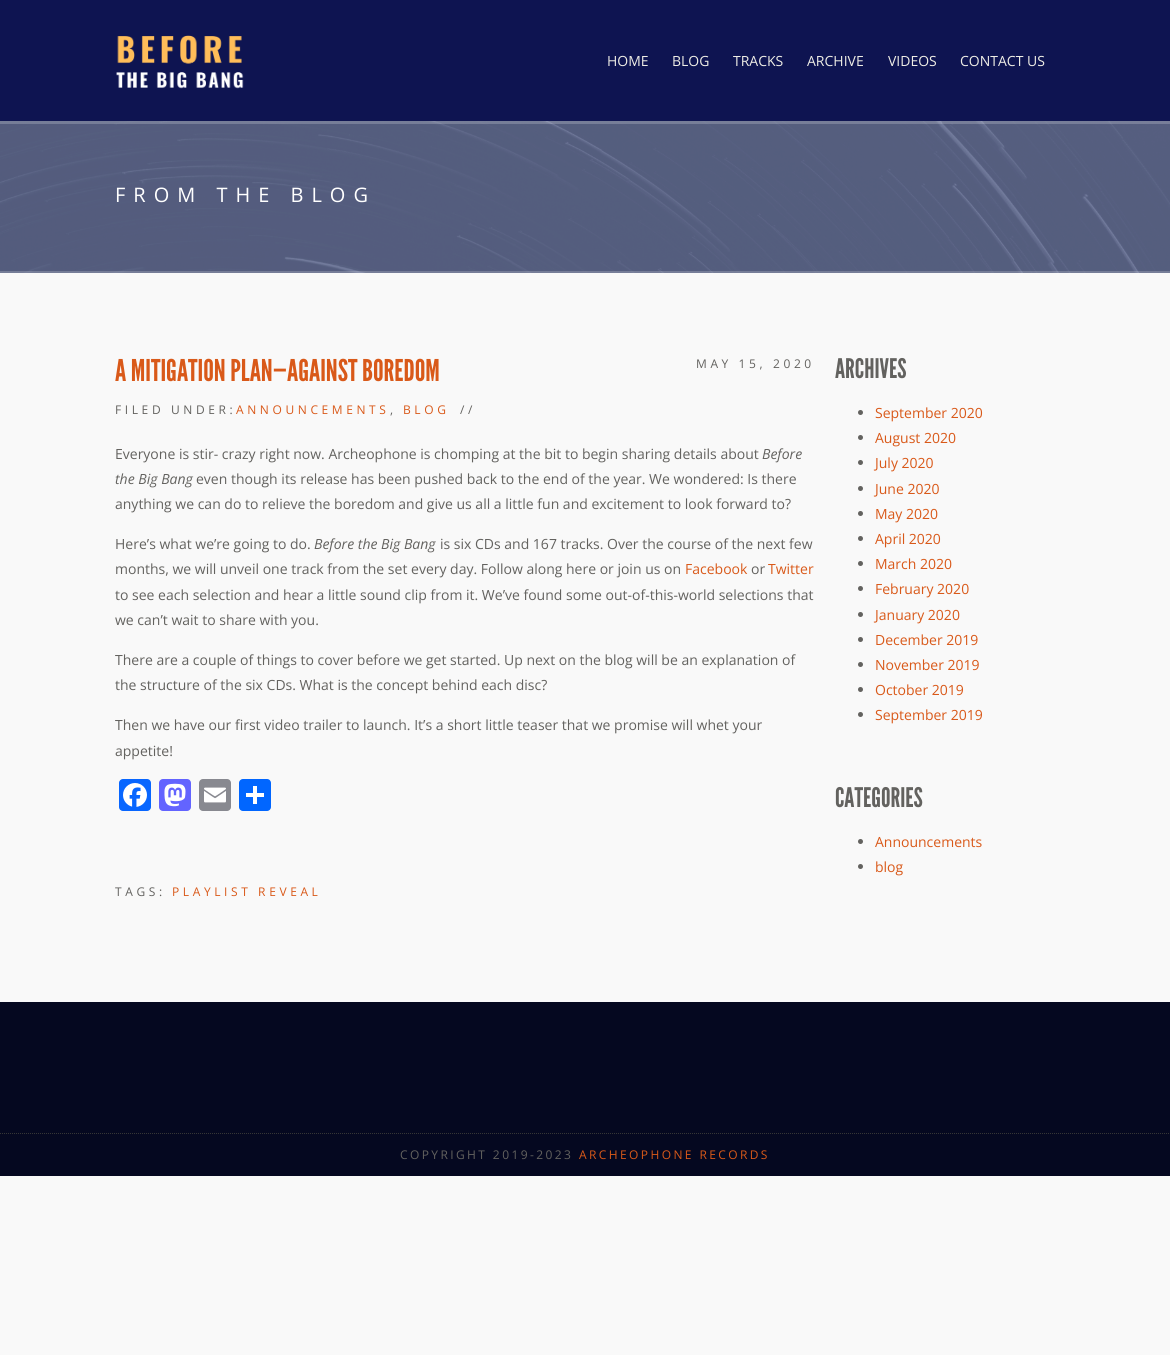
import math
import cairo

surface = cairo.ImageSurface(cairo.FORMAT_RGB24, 1170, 1355)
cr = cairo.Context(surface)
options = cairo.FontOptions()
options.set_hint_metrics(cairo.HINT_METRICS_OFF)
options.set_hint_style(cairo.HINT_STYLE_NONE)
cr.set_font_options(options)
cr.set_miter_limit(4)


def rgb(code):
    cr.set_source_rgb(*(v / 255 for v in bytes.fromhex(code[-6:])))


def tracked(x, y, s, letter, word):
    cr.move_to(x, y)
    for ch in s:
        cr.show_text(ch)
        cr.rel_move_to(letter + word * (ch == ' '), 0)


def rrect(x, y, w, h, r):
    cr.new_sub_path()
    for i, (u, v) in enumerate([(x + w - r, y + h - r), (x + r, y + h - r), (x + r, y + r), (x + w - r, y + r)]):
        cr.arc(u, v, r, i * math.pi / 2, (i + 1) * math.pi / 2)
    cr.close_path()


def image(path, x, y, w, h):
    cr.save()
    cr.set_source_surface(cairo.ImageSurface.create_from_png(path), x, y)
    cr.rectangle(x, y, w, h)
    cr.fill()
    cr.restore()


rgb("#f9f9f9")
cr.paint()
rgb("#0e1451")
cr.rectangle(0, 0, 1170, 121)
cr.fill()
image("img/1.png", 116, 35, 128, 54)
image("img/2.png", 0, 121, 1170, 152)
cr.set_source_rgba(1, 1, 1, 0.2)
cr.rectangle(0, 121, 1170, 3)
cr.fill()
cr.rectangle(0, 271, 1170, 2)
cr.fill()
rgb("#0866ff")
rrect(119, 779, 32, 32, 4)
cr.fill()
image("img/3.png", 123, 783, 24, 24)
rgb("#6364ff")
rrect(159, 779, 32, 32, 4)
cr.fill()
image("img/4.png", 164, 783, 22, 24)
rgb("#888990")
rrect(199, 779, 32, 32, 4)
cr.fill()
image("img/5.png", 204, 787, 22, 16)
rgb("#0166ff")
rrect(239, 779, 32, 32, 4)
cr.fill()
rgb("#ffffff")
cr.rectangle(253, 786, 4, 18)
cr.fill()
cr.rectangle(246, 793, 18, 4)
cr.fill()
rgb("#63625f")
cr.arc(860.5, 412.5, 2.5, 0, 2 * math.pi)
cr.fill()
cr.arc(860.5, 437.5, 2.5, 0, 2 * math.pi)
cr.fill()
cr.arc(860.5, 462.5, 2.5, 0, 2 * math.pi)
cr.fill()
cr.arc(860.5, 488.5, 2.5, 0, 2 * math.pi)
cr.fill()
cr.arc(860.5, 513.5, 2.5, 0, 2 * math.pi)
cr.fill()
cr.arc(860.5, 538.5, 2.5, 0, 2 * math.pi)
cr.fill()
cr.arc(860.5, 563.5, 2.5, 0, 2 * math.pi)
cr.fill()
cr.arc(860.5, 588.5, 2.5, 0, 2 * math.pi)
cr.fill()
cr.arc(860.5, 614.5, 2.5, 0, 2 * math.pi)
cr.fill()
cr.arc(860.5, 639.5, 2.5, 0, 2 * math.pi)
cr.fill()
cr.arc(860.5, 664.5, 2.5, 0, 2 * math.pi)
cr.fill()
cr.arc(860.5, 689.5, 2.5, 0, 2 * math.pi)
cr.fill()
cr.arc(860.5, 714.5, 2.5, 0, 2 * math.pi)
cr.fill()
cr.arc(860.5, 841.5, 2.5, 0, 2 * math.pi)
cr.fill()
cr.arc(860.5, 866.5, 2.5, 0, 2 * math.pi)
cr.fill()
rgb("#050820")
cr.rectangle(0, 1002, 1170, 174)
cr.fill()
cr.new_path()
cr.move_to(0, 1133.5)
cr.line_to(1170, 1133.5)
rgb("#363636")
cr.set_line_width(1)
cr.set_dash([1, 1])
cr.stroke()
cr.select_font_face("Open Sans")
cr.set_font_size(14)
rgb("#eeede5")
for x, y, s in [
    (607, 66, "HOME"),
    (672, 66, "BLOG"),
    (733, 66, "TRACKS"),
    (807, 66, "ARCHIVE"),
    (888, 66, "VIDEOS"),
    (960, 66, "CONTACT US"),
]:
    cr.move_to(x, y)
    cr.show_text(s)
cr.set_font_size(20)
rgb("#ffffff")
tracked(115, 202, "FROM THE BLOG", 8, 0)
cr.select_font_face("League Gothic")
cr.set_font_size(30)
rgb("#d95919")
cr.move_to(115, 381)
cr.show_text("A MITIGATION PLAN—AGAINST BOREDOM")
cr.select_font_face("Open Sans")
cr.set_font_size(12)
rgb("#63625f")
tracked(696, 368, "MAY 15, 2020", 3.6, 0)
tracked(115, 414, "FILED UNDER:", 3.6, 0)
rgb("#d95919")
tracked(236, 414, "ANNOUNCEMENTS", 3.6, 0)
rgb("#63625f")
tracked(390, 414, ",", 3.6, 0)
rgb("#d95919")
tracked(403, 414, "BLOG", 3.6, 0)
rgb("#63625f")
tracked(460, 414, "//", 3.6, 0)
cr.set_font_size(14)
cr.move_to(115, 459)
cr.show_text("Everyone is stir- crazy right now. Archeophone is chomping at the bit to begin sharing details about")
cr.select_font_face("Open Sans", cairo.FONT_SLANT_ITALIC)
cr.move_to(762, 459)
cr.show_text("Before")
cr.move_to(115, 484)
cr.show_text("the Big Bang")
cr.select_font_face("Open Sans")
for x, y, s in [
    (196, 484, "even though its release has been pushed back to the end of the year. We wondered: Is there"),
    (115, 509, "anything we can do to relieve the boredom and give us all a little fun and excitement to look forward to?"),
    (115, 549, "Here’s what we’re going to do."),
]:
    cr.move_to(x, y)
    cr.show_text(s)
cr.select_font_face("Open Sans", cairo.FONT_SLANT_ITALIC)
cr.move_to(314, 549)
cr.show_text("Before the Big Bang")
cr.select_font_face("Open Sans")
cr.move_to(440, 549)
cr.show_text("is six CDs and 167 tracks. Over the course of the next few")
cr.move_to(115, 574)
cr.show_text("months, we will unveil one track from the set every day. Follow along here or join us on")
rgb("#d95919")
cr.move_to(685, 574)
cr.show_text("Facebook")
rgb("#63625f")
cr.move_to(751, 574)
cr.show_text("or")
rgb("#d95919")
cr.move_to(768, 574)
cr.show_text("Twitter")
rgb("#63625f")
for x, y, s in [
    (115, 600, "to see each selection and hear a little sound clip from it. We’ve found some out-of-this-world selections that"),
    (115, 625, "we can’t wait to share with you."),
    (115, 665, "There are a couple of things to cover before we get started. Up next on the blog will be an explanation of"),
    (115, 690, "the structure of the six CDs. What is the concept behind each disc?"),
    (115, 730, "Then we have our first video trailer to launch. It’s a short little teaser that we promise will whet your"),
    (115, 756, "appetite!"),
]:
    cr.move_to(x, y)
    cr.show_text(s)
cr.set_font_size(12)
tracked(115, 896, "TAGS:", 3.6, 0)
rgb("#d95919")
tracked(172, 896, "PLAYLIST REVEAL", 3.6, 0)
cr.select_font_face("League Gothic")
cr.set_font_size(27)
rgb("#63625f")
cr.move_to(835, 378)
cr.show_text("ARCHIVES")
cr.select_font_face("Open Sans")
cr.set_font_size(14)
rgb("#d95919")
for x, y, s in [
    (875, 418, "September 2020"),
    (875, 443, "August 2020"),
    (875, 468, "July 2020"),
    (875, 494, "June 2020"),
    (875, 519, "May 2020"),
    (875, 544, "April 2020"),
    (875, 569, "March 2020"),
    (875, 594, "February 2020"),
    (875, 620, "January 2020"),
    (875, 645, "December 2019"),
    (875, 670, "November 2019"),
    (875, 695, "October 2019"),
    (875, 720, "September 2019"),
]:
    cr.move_to(x, y)
    cr.show_text(s)
cr.select_font_face("League Gothic")
cr.set_font_size(27)
rgb("#63625f")
cr.move_to(835, 807)
cr.show_text("CATEGORIES")
cr.select_font_face("Open Sans")
cr.set_font_size(14)
rgb("#d95919")
cr.move_to(875, 847)
cr.show_text("Announcements")
cr.move_to(875, 872)
cr.show_text("blog")
cr.set_font_size(12)
rgb("#63625f")
tracked(400, 1159, "COPYRIGHT 2019-2023", 2.4, 0)
rgb("#d95919")
tracked(579, 1159, "ARCHEOPHONE RECORDS", 2.4, 0)
surface.write_to_png("page.png")
